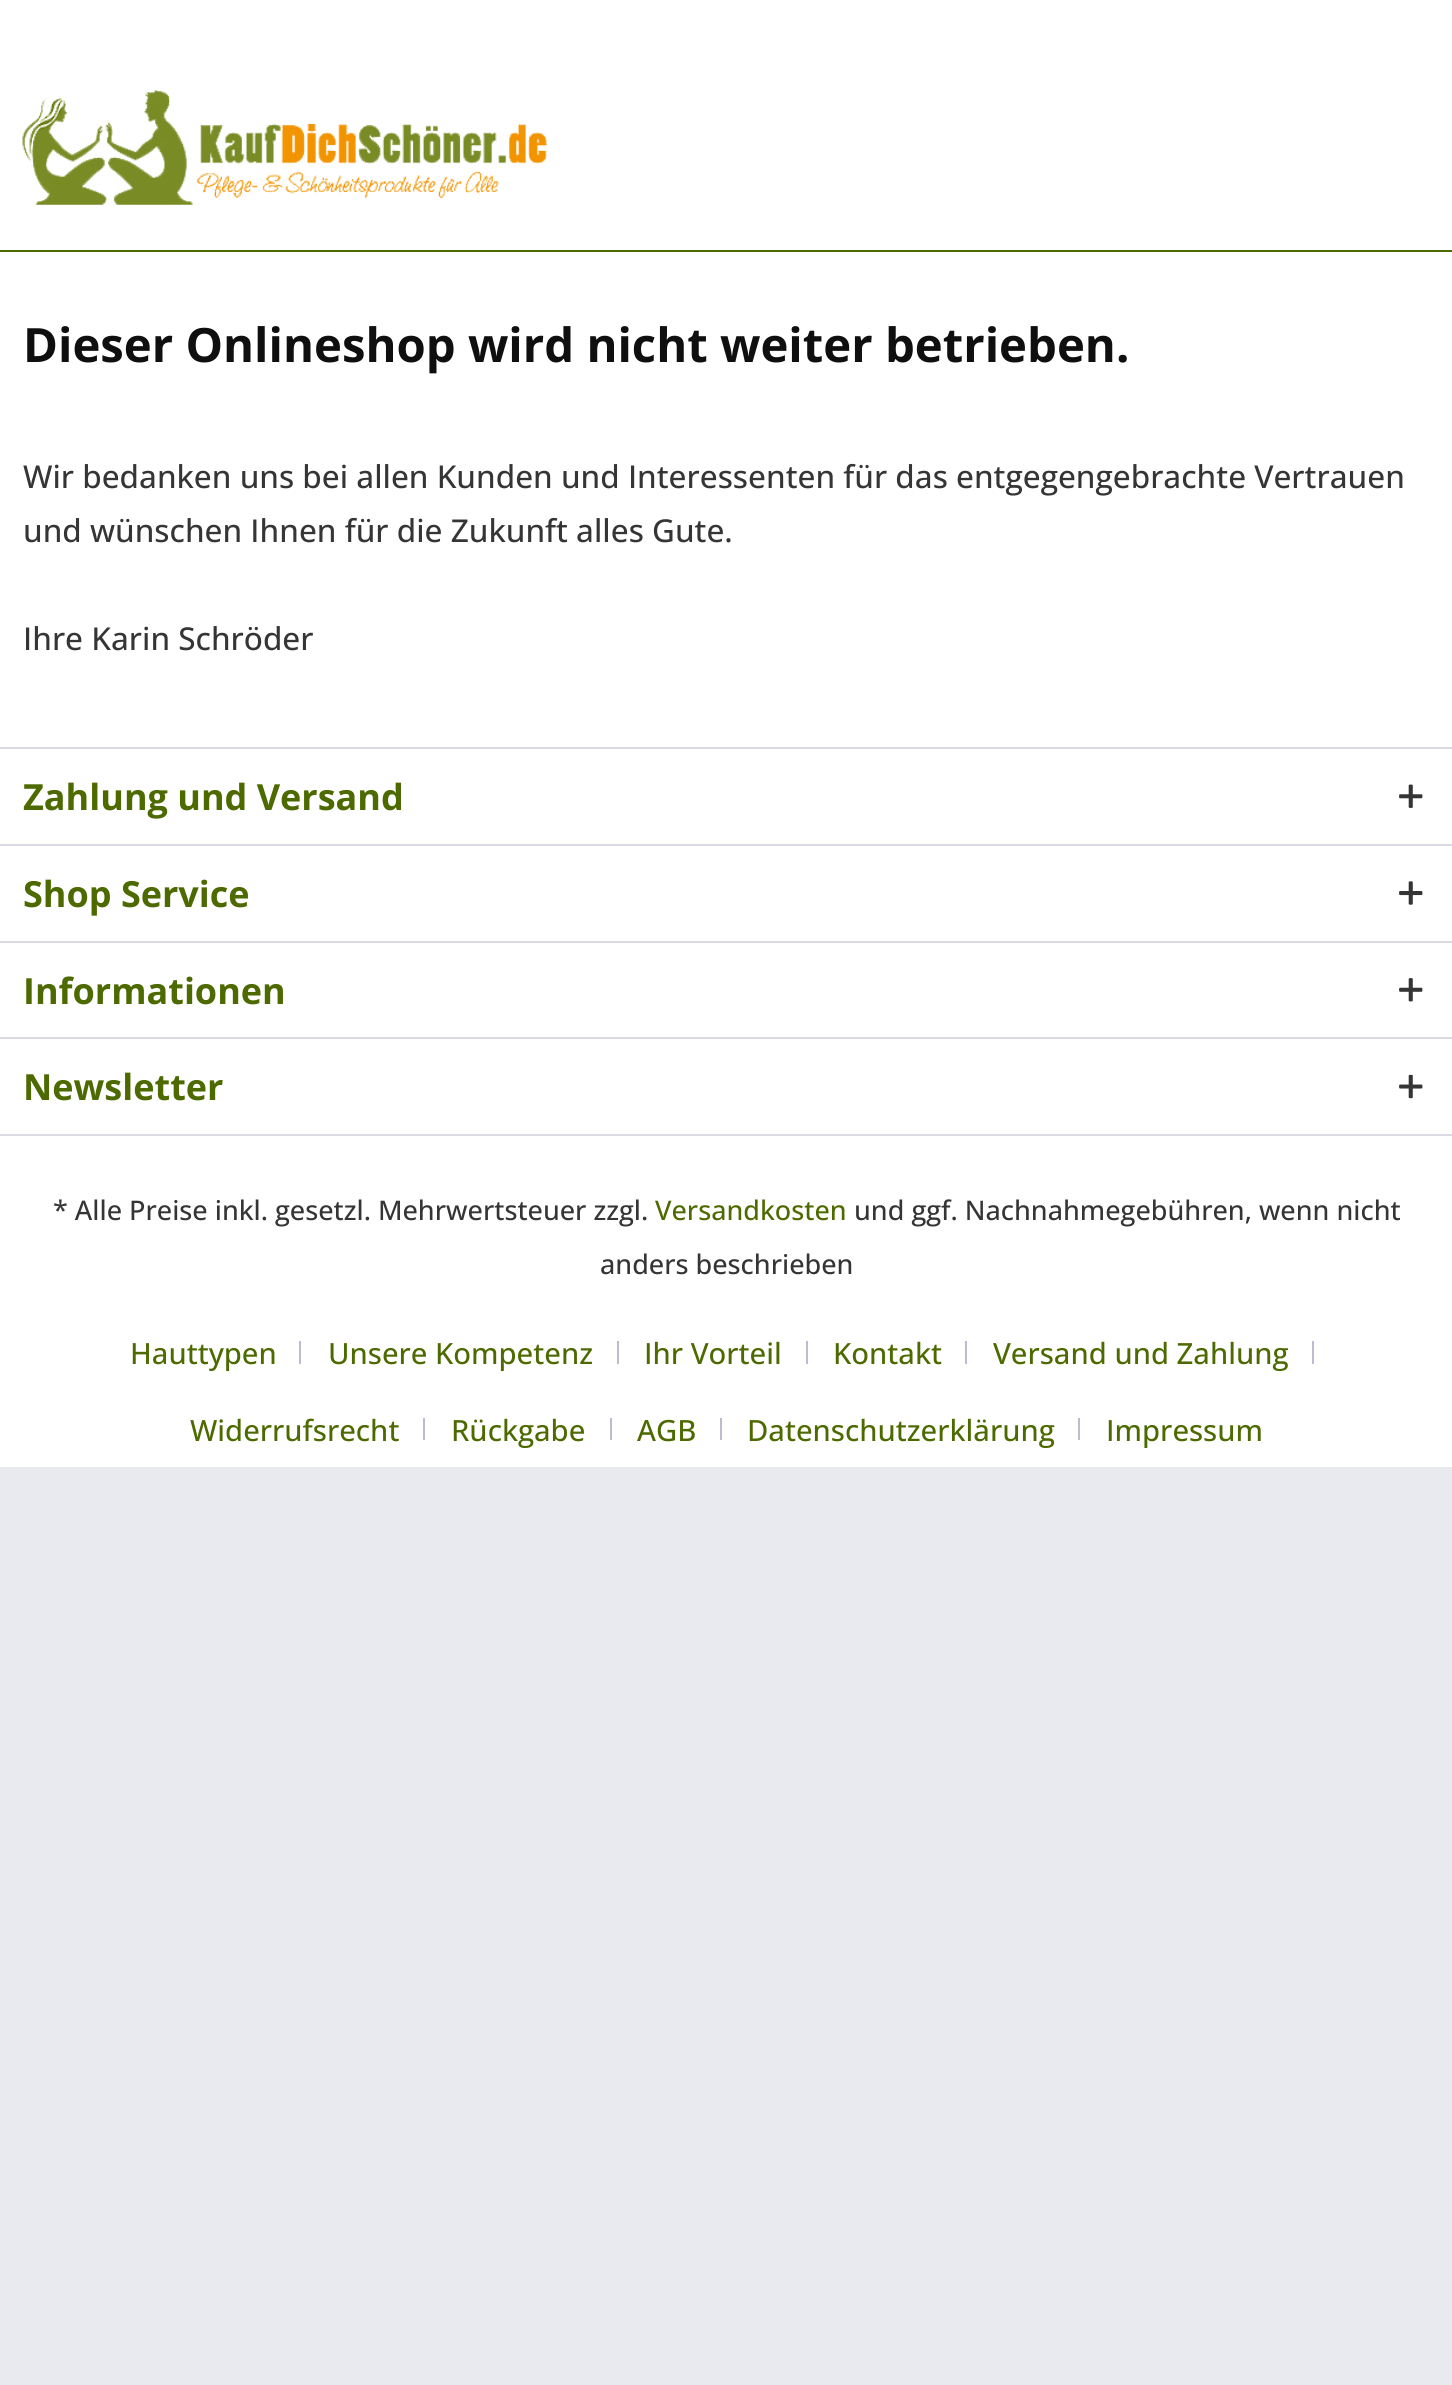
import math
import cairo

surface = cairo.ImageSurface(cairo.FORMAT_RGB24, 1452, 2385)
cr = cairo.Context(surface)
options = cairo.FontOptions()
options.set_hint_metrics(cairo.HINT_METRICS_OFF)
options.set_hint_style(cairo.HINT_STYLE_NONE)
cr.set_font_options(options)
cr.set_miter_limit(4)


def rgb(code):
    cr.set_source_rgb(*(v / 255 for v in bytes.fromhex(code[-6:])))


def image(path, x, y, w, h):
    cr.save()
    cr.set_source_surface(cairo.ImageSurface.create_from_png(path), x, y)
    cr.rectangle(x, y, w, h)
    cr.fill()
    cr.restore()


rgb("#e9e9f0")
cr.paint()
rgb("#ffffff")
cr.rectangle(0, 0, 1452, 250)
cr.fill()
rgb("#4d6a00")
cr.rectangle(0, 250, 1452, 2)
cr.fill()
image("img/1.png", 22, 90, 525, 115)
for x, y, w, h, color in [
    (0, 252, 1452, 495, "#ffffff"),
    (0, 749, 1452, 718, "#ffffff"),
    (0, 747, 1452, 2, "#dadae5"),
]:
    rgb(color)
    cr.rectangle(x, y, w, h)
    cr.fill()
image("img/2.png", 1399, 784, 24, 24)
cr.rectangle(0, 844, 1452, 2)
cr.fill()
image("img/3.png", 1399, 881, 24, 24)
cr.rectangle(0, 941, 1452, 2)
cr.fill()
image("img/4.png", 1399, 978, 24, 24)
cr.rectangle(0, 1037, 1452, 2)
cr.fill()
cr.rectangle(0, 1134, 1452, 2)
cr.fill()
image("img/5.png", 1399, 1074, 24, 25)
for x, y, w, h, color in [
    (299, 1341, 2, 23, "#bcbcd0"),
    (617, 1341, 2, 23, "#bcbcd0"),
    (806, 1341, 2, 23, "#bcbcd0"),
    (965, 1341, 2, 23, "#bcbcd0"),
    (1312, 1341, 2, 23, "#bcbcd0"),
    (423, 1418, 2, 22, "#bcbcd0"),
    (610, 1418, 2, 22, "#bcbcd0"),
    (720, 1418, 2, 22, "#bcbcd0"),
    (1078, 1418, 2, 22, "#bcbcd0"),
]:
    rgb(color)
    cr.rectangle(x, y, w, h)
    cr.fill()
cr.select_font_face("Open Sans", cairo.FONT_SLANT_NORMAL, cairo.FONT_WEIGHT_BOLD)
cr.set_font_size(47.25)
rgb("#0f0f0f")
cr.move_to(23, 362)
cr.show_text("Dieser Onlineshop wird nicht weiter betrieben.")
cr.select_font_face("Open Sans Medium")
cr.set_font_size(31.5)
rgb("#353535")
for x, y, s in [
    (23, 488, "Wir bedanken uns bei allen Kunden und Interessenten für das entgegengebrachte Vertrauen"),
    (23, 542, "und wünschen Ihnen für die Zukunft alles Gute."),
    (23, 650, "Ihre Karin Schröder"),
]:
    cr.move_to(x, y)
    cr.show_text(s)
cr.select_font_face("Open Sans", cairo.FONT_SLANT_NORMAL, cairo.FONT_WEIGHT_BOLD)
cr.set_font_size(36)
rgb("#4d6a00")
for x, y, s in [
    (23, 810, "Zahlung und Versand"),
    (23, 907, "Shop Service"),
    (23, 1004, "Informationen"),
    (23, 1100, "Newsletter"),
]:
    cr.move_to(x, y)
    cr.show_text(s)
cr.select_font_face("Open Sans Medium")
cr.set_font_size(27)
rgb("#353535")
cr.move_to(53, 1220)
cr.show_text("* Alle Preise inkl. gesetzl. Mehrwertsteuer zzgl.")
rgb("#4d6a00")
cr.move_to(655, 1220)
cr.show_text("Versandkosten")
rgb("#353535")
cr.move_to(854, 1220)
cr.show_text("und ggf. Nachnahmegebühren, wenn nicht")
cr.move_to(600, 1274)
cr.show_text("anders beschrieben")
cr.set_font_size(29.25)
rgb("#4d6a00")
for x, y, s in [
    (130, 1364, "Hauttypen"),
    (328, 1364, "Unsere Kompetenz"),
    (644, 1364, "Ihr Vorteil"),
    (833, 1364, "Kontakt"),
    (993, 1364, "Versand und Zahlung"),
    (190, 1441, "Widerrufsrecht"),
    (451, 1441, "Rückgabe"),
    (637, 1441, "AGB"),
    (747, 1441, "Datenschutzerklärung"),
    (1106, 1441, "Impressum"),
]:
    cr.move_to(x, y)
    cr.show_text(s)
surface.write_to_png("page.png")
